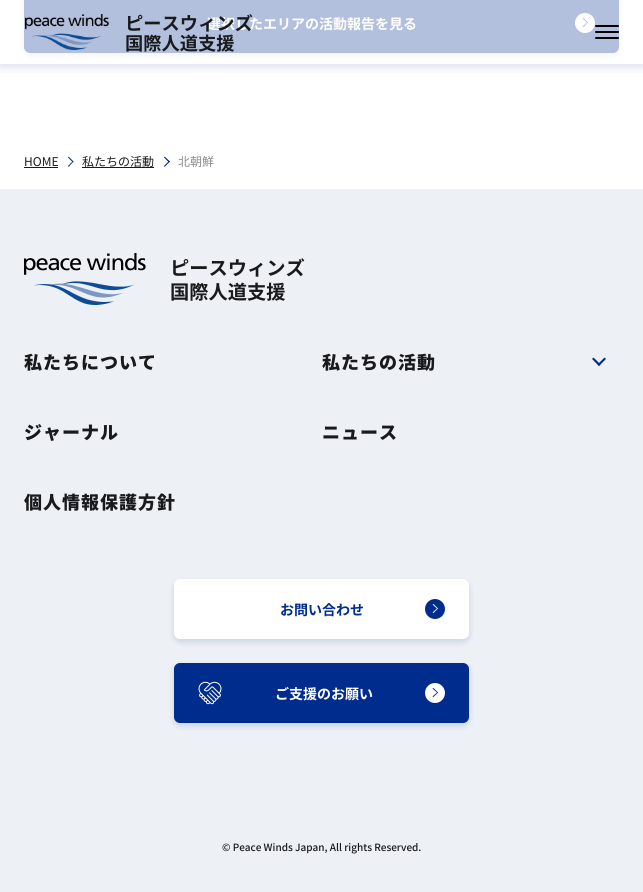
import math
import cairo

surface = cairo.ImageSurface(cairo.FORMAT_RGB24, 643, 892)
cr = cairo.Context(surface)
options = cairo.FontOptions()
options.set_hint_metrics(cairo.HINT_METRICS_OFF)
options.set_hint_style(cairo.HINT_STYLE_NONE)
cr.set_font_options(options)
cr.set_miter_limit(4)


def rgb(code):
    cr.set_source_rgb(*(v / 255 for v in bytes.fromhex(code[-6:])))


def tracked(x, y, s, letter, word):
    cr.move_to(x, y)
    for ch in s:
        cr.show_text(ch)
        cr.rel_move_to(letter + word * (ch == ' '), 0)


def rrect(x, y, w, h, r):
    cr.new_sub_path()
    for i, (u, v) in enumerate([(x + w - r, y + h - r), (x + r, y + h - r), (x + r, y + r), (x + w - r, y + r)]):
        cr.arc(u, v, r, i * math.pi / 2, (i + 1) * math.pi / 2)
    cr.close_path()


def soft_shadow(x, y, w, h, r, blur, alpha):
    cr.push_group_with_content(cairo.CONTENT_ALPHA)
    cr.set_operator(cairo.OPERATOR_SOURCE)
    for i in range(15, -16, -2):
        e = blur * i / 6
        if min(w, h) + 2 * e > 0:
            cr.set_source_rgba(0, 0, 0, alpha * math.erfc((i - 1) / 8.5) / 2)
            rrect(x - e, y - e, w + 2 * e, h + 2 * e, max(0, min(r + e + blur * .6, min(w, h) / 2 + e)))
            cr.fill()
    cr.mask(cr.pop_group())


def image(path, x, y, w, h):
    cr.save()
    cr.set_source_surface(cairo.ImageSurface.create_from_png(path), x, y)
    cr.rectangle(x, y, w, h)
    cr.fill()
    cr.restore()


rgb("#ffffff")
cr.paint()
rgb("#b3c0dd")
soft_shadow(24, -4, 595, 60, 6, 3, 0.15)
rgb("#b3c0dd")
rrect(24, -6, 595, 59, 6)
cr.fill()
rgb("#ffffff")
cr.arc(585, 23, 10, 0, 2 * math.pi)
cr.fill()
rgb("#b3c0dd")
cr.new_path()
cr.move_to(583.5, 18)
cr.line_to(588, 22.5)
cr.line_to(587.5, 23)
cr.line_to(582.5, 18.5)
cr.close_path()
cr.fill()
cr.new_path()
cr.move_to(587.5, 22)
cr.line_to(588, 22.5)
cr.line_to(583.5, 27)
cr.line_to(582.5, 26.5)
cr.close_path()
cr.fill()
cr.save()
cr.rectangle(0, 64, 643, 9)
cr.clip()
rgb("#002c8e")
soft_shadow(0, 3, 643, 64, 0, 5, 0.15)
cr.restore()
image("img/1.png", 25, 14, 84, 36)
rgb("#000000")
rrect(595, 25, 24, 2, 1)
cr.fill()
rrect(595, 31, 24, 2, 1)
cr.fill()
rrect(595, 37, 24, 2, 1)
cr.fill()
rgb("#191a1c")
cr.rectangle(24, 167, 34, 1)
cr.fill()
rgb("#002c8e")
cr.new_path()
cr.move_to(68.5, 156.5)
cr.line_to(73.5, 161.5)
cr.line_to(73, 162.5)
cr.line_to(68, 157.5)
cr.close_path()
cr.fill()
cr.new_path()
cr.move_to(73, 161)
cr.line_to(73.5, 161.5)
cr.line_to(68.5, 167)
cr.line_to(68, 166)
cr.close_path()
cr.fill()
rgb("#191a1c")
cr.rectangle(82, 167, 72, 1)
cr.fill()
rgb("#002c8e")
cr.new_path()
cr.move_to(164.5, 156.5)
cr.line_to(170, 161.5)
cr.line_to(169, 162.5)
cr.line_to(164, 157.5)
cr.close_path()
cr.fill()
cr.new_path()
cr.move_to(169, 161)
cr.line_to(170, 161.5)
cr.line_to(164.5, 167)
cr.line_to(164, 166)
cr.close_path()
cr.fill()
rgb("#edf0f5")
cr.rectangle(0, 189, 643, 703)
cr.fill()
image("img/2.png", 24, 253, 122, 52)
rgb("#002c8e")
cr.new_path()
cr.move_to(604.5, 357.5)
cr.line_to(606, 359)
cr.line_to(599, 366)
cr.line_to(597.5, 364.5)
cr.close_path()
cr.fill()
cr.new_path()
cr.move_to(593.5, 357.5)
cr.line_to(600.5, 364.5)
cr.line_to(599, 366)
cr.line_to(592, 359)
cr.close_path()
cr.fill()
rgb("#002c8e")
soft_shadow(174, 582, 295, 60, 6, 3, 0.15)
rgb("#ffffff")
rrect(174, 579, 295, 60, 6)
cr.fill()
rgb("#002c8e")
cr.arc(435, 609, 10, 0, 2 * math.pi)
cr.fill()
rgb("#ffffff")
cr.new_path()
cr.move_to(433.5, 604)
cr.line_to(438, 608.5)
cr.line_to(437.5, 609)
cr.line_to(432.5, 604.5)
cr.close_path()
cr.fill()
cr.new_path()
cr.move_to(437.5, 608)
cr.line_to(438, 608.5)
cr.line_to(433.5, 613)
cr.line_to(432.5, 612.5)
cr.close_path()
cr.fill()
rgb("#002c8e")
soft_shadow(174, 666, 295, 60, 6, 3, 0.15)
rgb("#002c8e")
rrect(174, 663, 295, 60, 6)
cr.fill()
image("img/3.png", 198, 681, 24, 24)
rgb("#ffffff")
cr.arc(435, 693, 10, 0, 2 * math.pi)
cr.fill()
rgb("#002c8e")
cr.new_path()
cr.move_to(433.5, 688)
cr.line_to(438, 692.5)
cr.line_to(437.5, 693)
cr.line_to(432.5, 688.5)
cr.close_path()
cr.fill()
cr.new_path()
cr.move_to(437.5, 692)
cr.line_to(438, 692.5)
cr.line_to(433.5, 697)
cr.line_to(432.5, 696.5)
cr.close_path()
cr.fill()
cr.select_font_face("Noto Sans JP", cairo.FONT_SLANT_NORMAL, cairo.FONT_WEIGHT_BOLD)
cr.set_font_size(18.25)
rgb("#191a1c")
cr.move_to(125, 50)
cr.show_text("国際人道支援")
cr.set_font_size(14)
rgb("#ffffff")
cr.move_to(207, 29)
cr.show_text("選択したエリアの活動報告を見る")
cr.set_font_size(18.25)
rgb("#191a1c")
cr.move_to(125, 30)
cr.show_text("ピースウィンズ")
cr.select_font_face("Noto Sans JP")
cr.set_font_size(12)
cr.move_to(24, 166)
cr.show_text("HOME")
cr.move_to(82, 166)
cr.show_text("私たちの活動")
rgb("#8c8d8e")
cr.move_to(178, 166)
cr.show_text("北朝鮮")
cr.select_font_face("Noto Sans JP", cairo.FONT_SLANT_NORMAL, cairo.FONT_WEIGHT_BOLD)
cr.set_font_size(19.25)
rgb("#191a1c")
cr.move_to(170, 275)
cr.show_text("ピースウィンズ")
cr.move_to(170, 299)
cr.show_text("国際人道支援")
cr.select_font_face("Noto Sans JP Black")
cr.set_font_size(18)
for x, y, s in [
    (24, 369, "私たちについて"),
    (322, 369, "私たちの活動"),
    (24, 439, "ジャーナル"),
    (322, 439, "ニュース"),
    (24, 509, "個人情報保護方針"),
]:
    tracked(x, y, s, 1, 0)
cr.select_font_face("Noto Sans JP", cairo.FONT_SLANT_NORMAL, cairo.FONT_WEIGHT_BOLD)
cr.set_font_size(14)
rgb("#002c8e")
cr.move_to(280, 615)
cr.show_text("お問い合わせ")
rgb("#ffffff")
cr.move_to(275, 699)
cr.show_text("ご支援のお願い")
cr.select_font_face("Noto Sans JP Medium")
cr.set_font_size(10)
rgb("#191a1c")
cr.move_to(222, 851)
cr.show_text("© Peace Winds Japan, All rights Reserved.")
surface.write_to_png("page.png")
